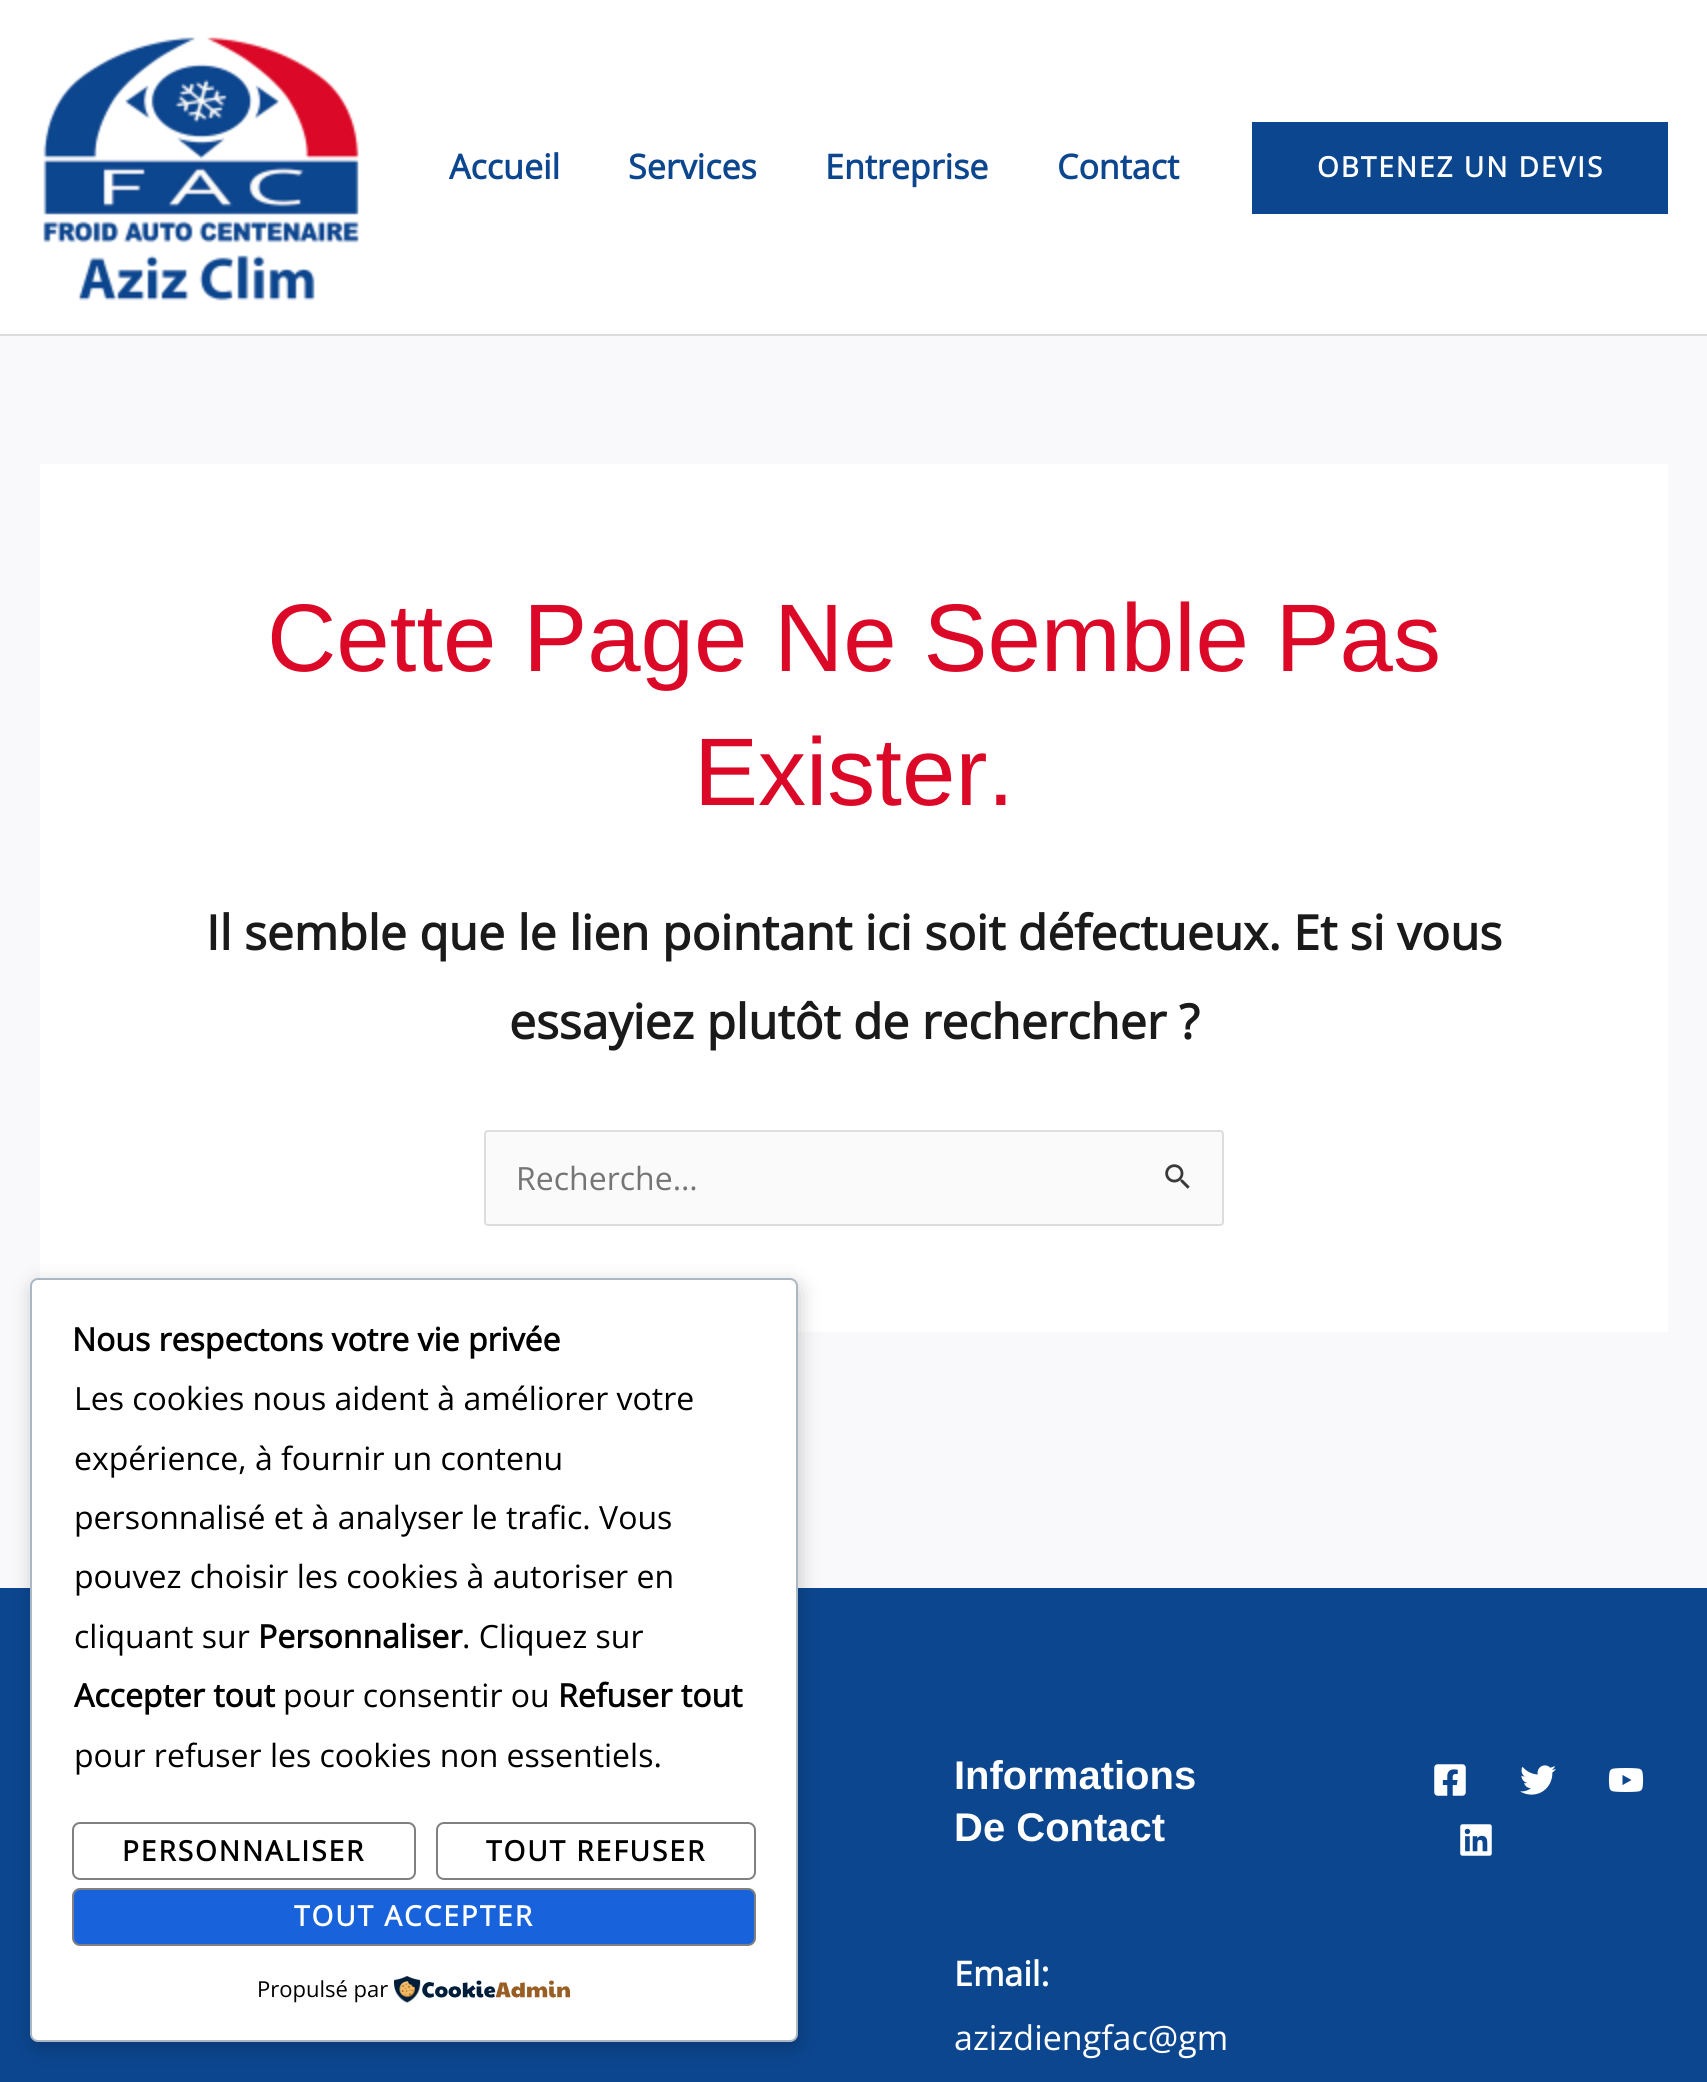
import math
import cairo

surface = cairo.ImageSurface(cairo.FORMAT_RGB24, 1707, 2082)
cr = cairo.Context(surface)
options = cairo.FontOptions()
options.set_hint_metrics(cairo.HINT_METRICS_OFF)
options.set_hint_style(cairo.HINT_STYLE_NONE)
cr.set_font_options(options)
cr.set_miter_limit(4)


def rgb(code):
    cr.set_source_rgb(*(v / 255 for v in bytes.fromhex(code[-6:])))


def tracked(x, y, s, letter, word):
    cr.move_to(x, y)
    for ch in s:
        cr.show_text(ch)
        cr.rel_move_to(letter + word * (ch == ' '), 0)


def rrect(x, y, w, h, r):
    cr.new_sub_path()
    for i, (u, v) in enumerate([(x + w - r, y + h - r), (x + r, y + h - r), (x + r, y + r), (x + w - r, y + r)]):
        cr.arc(u, v, r, i * math.pi / 2, (i + 1) * math.pi / 2)
    cr.close_path()


def soft_shadow(x, y, w, h, r, blur, alpha):
    cr.push_group_with_content(cairo.CONTENT_ALPHA)
    cr.set_operator(cairo.OPERATOR_SOURCE)
    for i in range(15, -16, -2):
        e = blur * i / 6
        if min(w, h) + 2 * e > 0:
            cr.set_source_rgba(0, 0, 0, alpha * math.erfc((i - 1) / 8.5) / 2)
            rrect(x - e, y - e, w + 2 * e, h + 2 * e, max(0, min(r + e + blur * .6, min(w, h) / 2 + e)))
            cr.fill()
    cr.mask(cr.pop_group())


def image(path, x, y, w, h):
    cr.save()
    cr.set_source_surface(cairo.ImageSurface.create_from_png(path), x, y)
    cr.rectangle(x, y, w, h)
    cr.fill()
    cr.restore()


rgb("#f9f9fb")
cr.paint()
rgb("#ffffff")
cr.rectangle(0, 0, 1707, 334)
cr.fill()
rgb("#dddddd")
cr.rectangle(0, 334, 1707, 2)
cr.fill()
image("img/1.png", 43, 37, 316, 264)
rgb("#0c468f")
cr.rectangle(1252, 122, 416, 92)
cr.fill()
rgb("#ffffff")
cr.rectangle(40, 464, 1628, 868)
cr.fill()
rgb("#fafafa")
rrect(485, 1131, 738, 94, 3)
cr.fill_preserve()
rgb("#dddddd")
cr.stroke()
image("img/2.png", 1165, 1164, 25, 25)
rgb("#0c468f")
cr.rectangle(0, 1588, 1707, 494)
cr.fill()
image("img/3.png", 1434, 1764, 32, 32)
image("img/4.png", 1520, 1765, 36, 30)
image("img/5.png", 1608, 1768, 36, 24)
image("img/6.png", 1460, 1824, 32, 32)
rgb("#000000")
soft_shadow(32, 1284, 768, 764, 8, 10, 0.2)
rgb("#ffffff")
rrect(31, 1279, 766, 762, 7)
cr.fill_preserve()
rgb("#abb8c3")
cr.stroke()
rrect(73, 1823, 342, 56, 7)
rgb("#808080")
cr.stroke()
rrect(437, 1823, 318, 56, 7)
cr.stroke()
rgb("#1863dc")
rrect(73, 1889, 682, 56, 7)
cr.fill_preserve()
rgb("#808080")
cr.stroke()
image("img/7.png", 394, 1976, 177, 27)
cr.select_font_face("Open Sans", cairo.FONT_SLANT_NORMAL, cairo.FONT_WEIGHT_BOLD)
cr.set_font_size(34)
rgb("#0c468f")
for x, y, s in [
    (449, 179, "Accueil"),
    (628, 179, "Services"),
    (825, 179, "Entreprise"),
    (1057, 179, "Contact"),
]:
    cr.move_to(x, y)
    cr.show_text(s)
cr.set_font_size(28)
rgb("#ffffff")
tracked(1317, 177, "OBTENEZ UN DEVIS", 2, 0)
cr.select_font_face("Liberation Sans")
cr.set_font_size(96)
rgb("#db0828")
cr.move_to(267, 671)
cr.show_text("Cette Page Ne Semble Pas")
cr.move_to(694, 805)
cr.show_text("Exister.")
cr.select_font_face("Open Sans", cairo.FONT_SLANT_NORMAL, cairo.FONT_WEIGHT_BOLD)
cr.set_font_size(48)
rgb("#1a1a1a")
cr.move_to(206, 950)
cr.show_text("Il semble que le lien pointant ici soit défectueux. Et si vous")
cr.move_to(509, 1039)
cr.show_text("essayiez plutôt de rechercher ?")
cr.select_font_face("Open Sans")
cr.set_font_size(32)
rgb("#757575")
cr.move_to(516, 1190)
cr.show_text("Recherche…")
cr.select_font_face("Liberation Sans", cairo.FONT_SLANT_NORMAL, cairo.FONT_WEIGHT_BOLD)
cr.set_font_size(40)
rgb("#ffffff")
cr.move_to(954, 1789)
cr.show_text("Informations")
cr.move_to(954, 1841)
cr.show_text("De Contact")
cr.select_font_face("Open Sans", cairo.FONT_SLANT_NORMAL, cairo.FONT_WEIGHT_BOLD)
cr.set_font_size(34)
cr.move_to(954, 1986)
cr.show_text("Email:")
cr.select_font_face("Open Sans")
cr.move_to(954, 2050)
cr.show_text("azizdiengfac@gm")
cr.select_font_face("Open Sans", cairo.FONT_SLANT_NORMAL, cairo.FONT_WEIGHT_BOLD)
cr.set_font_size(32)
rgb("#000000")
cr.move_to(72, 1351)
cr.show_text("Nous respectons votre vie privée")
cr.select_font_face("Open Sans")
for x, y, s in [
    (74, 1410, "Les cookies nous aident à améliorer votre"),
    (74, 1470, "expérience, à fournir un contenu"),
    (74, 1529, "personnalisé et à analyser le trafic. Vous"),
    (74, 1588, "pouvez choisir les cookies à autoriser en"),
    (74, 1648, "cliquant sur"),
]:
    cr.move_to(x, y)
    cr.show_text(s)
cr.select_font_face("Open Sans", cairo.FONT_SLANT_NORMAL, cairo.FONT_WEIGHT_BOLD)
cr.move_to(258, 1648)
cr.show_text("Personnaliser")
cr.select_font_face("Open Sans")
cr.move_to(462, 1648)
cr.show_text(". Cliquez sur")
cr.select_font_face("Open Sans", cairo.FONT_SLANT_NORMAL, cairo.FONT_WEIGHT_BOLD)
cr.move_to(74, 1707)
cr.show_text("Accepter tout")
cr.select_font_face("Open Sans")
cr.move_to(283, 1707)
cr.show_text("pour consentir ou")
cr.select_font_face("Open Sans", cairo.FONT_SLANT_NORMAL, cairo.FONT_WEIGHT_BOLD)
cr.move_to(558, 1707)
cr.show_text("Refuser tout")
cr.select_font_face("Open Sans")
cr.move_to(74, 1767)
cr.show_text("pour refuser les cookies non essentiels.")
cr.select_font_face("Open Sans", cairo.FONT_SLANT_NORMAL, cairo.FONT_WEIGHT_BOLD)
cr.set_font_size(28)
tracked(122, 1861, "PERSONNALISER", 2, 0)
tracked(486, 1861, "TOUT REFUSER", 2, 0)
rgb("#ffffff")
tracked(294, 1926, "TOUT ACCEPTER", 2, 0)
cr.select_font_face("Open Sans")
cr.set_font_size(22)
rgb("#000000")
cr.move_to(257, 1997)
cr.show_text("Propulsé par")
surface.write_to_png("page.png")
